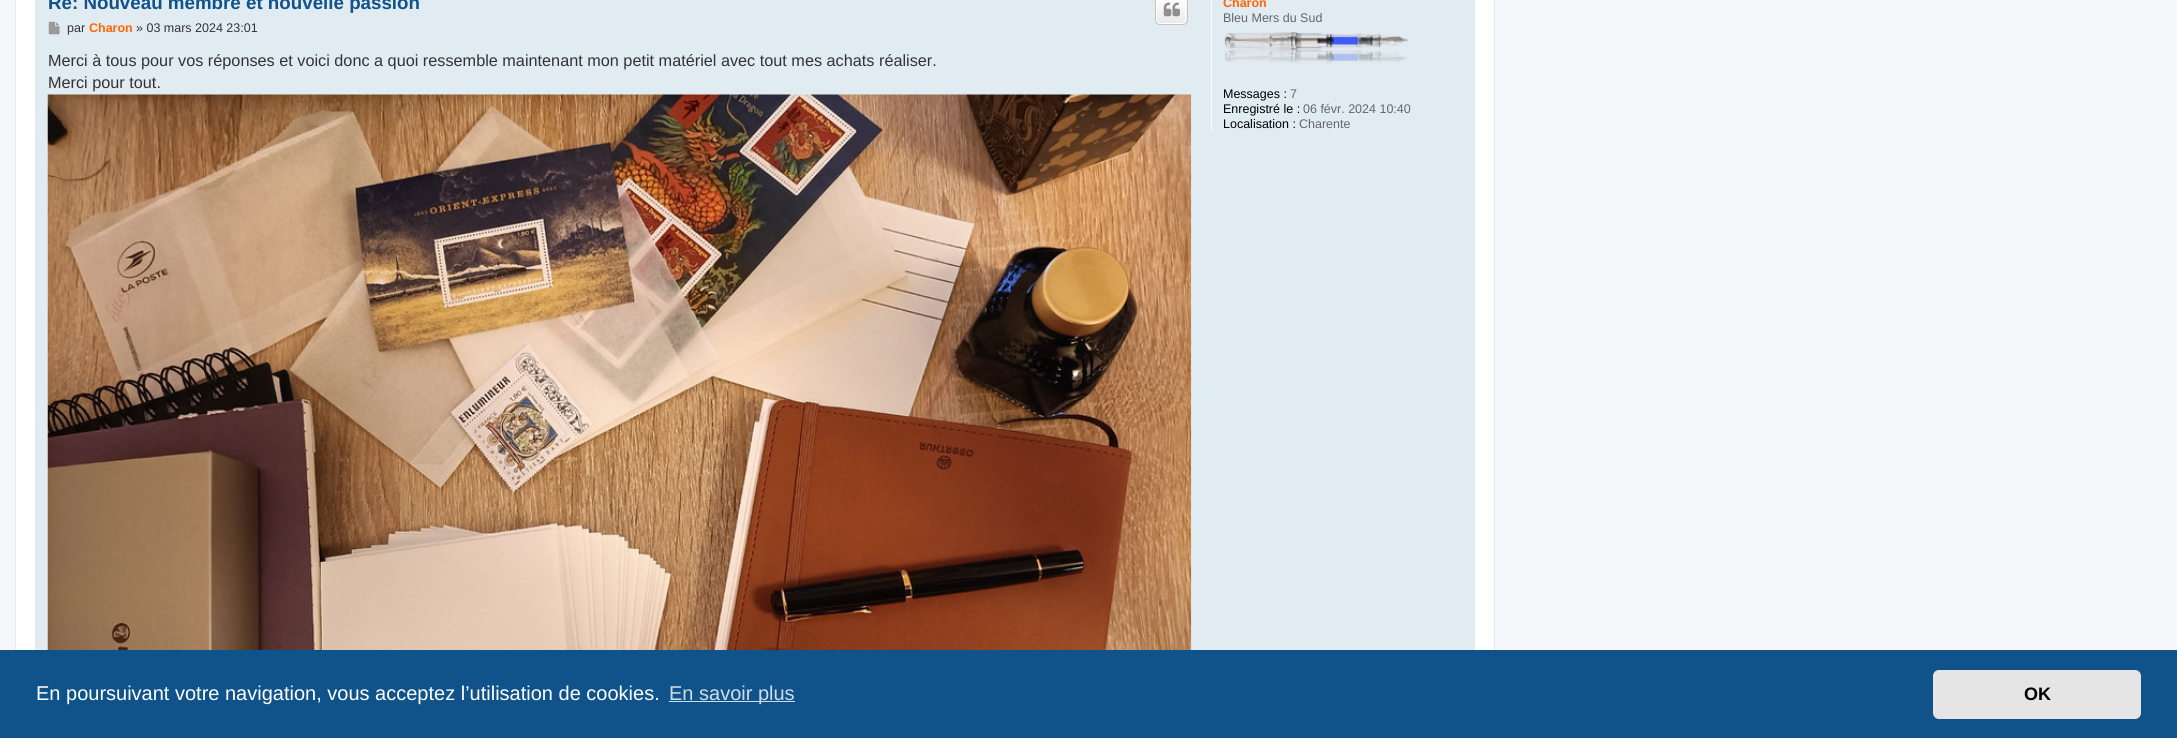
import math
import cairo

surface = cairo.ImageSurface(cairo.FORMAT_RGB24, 2177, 738)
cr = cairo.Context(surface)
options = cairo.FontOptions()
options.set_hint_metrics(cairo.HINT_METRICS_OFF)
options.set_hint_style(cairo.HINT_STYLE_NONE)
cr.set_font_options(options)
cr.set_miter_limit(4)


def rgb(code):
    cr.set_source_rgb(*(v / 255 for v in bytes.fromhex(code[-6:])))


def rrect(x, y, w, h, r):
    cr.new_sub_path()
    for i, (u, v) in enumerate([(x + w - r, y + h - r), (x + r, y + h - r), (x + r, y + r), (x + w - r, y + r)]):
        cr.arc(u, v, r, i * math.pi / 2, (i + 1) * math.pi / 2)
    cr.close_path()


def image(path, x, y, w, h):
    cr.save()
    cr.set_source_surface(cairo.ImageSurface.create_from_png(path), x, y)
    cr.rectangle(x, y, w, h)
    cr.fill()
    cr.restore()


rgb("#f5f7fa")
cr.paint()
rgb("#ffffff")
cr.rectangle(16, 0, 1478, 650)
cr.fill()
cr.rectangle(15.5, -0.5, 1479, 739)
rgb("#e6e9ed")
cr.set_line_width(1)
cr.stroke()
rgb("#e1ebf2")
cr.rectangle(35, 0, 1440, 650)
cr.fill()
cr.save()
rrect(1155, -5, 33, 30, 5)
cr.clip()
gradient = cairo.LinearGradient(1171, -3.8, 1171, 24)
gradient.add_color_stop_rgba(0, 1, 1, 1, 1)
gradient.add_color_stop_rgba(1, 0.914, 0.914, 0.914, 1)
cr.set_source(gradient)
cr.rectangle(1155, 0, 33, 24)
cr.fill()
cr.restore()
rrect(1156.5, -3.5, 29, 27, 3.5)
rgb("#ffffff")
cr.stroke()
rrect(1155.5, -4.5, 32, 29, 4.5)
rgb("#c7c3bf")
cr.stroke()
image("img/1.png", 1163, 2, 17, 15)
image("img/2.png", 48, 21, 12, 14)
image("img/3.png", 47, 94, 1145, 556)
rgb("#ffffff")
cr.rectangle(1211, 0, 1, 131)
cr.fill()
image("img/4.png", 1224, 32, 185, 32)
rgb("#0f538a")
cr.rectangle(0, 650, 2177, 88)
cr.fill()
rgb("#cfdde8")
cr.rectangle(669, 701, 126, 1)
cr.fill()
rgb("#e5e5e5")
rrect(1933, 670, 208, 49, 6)
cr.fill()
cr.select_font_face("Liberation Sans", cairo.FONT_SLANT_NORMAL, cairo.FONT_WEIGHT_BOLD)
cr.set_font_size(18.75)
rgb("#105289")
cr.move_to(48, 9)
cr.show_text("Re: Nouveau membre et nouvelle passion")
cr.select_font_face("Liberation Sans")
cr.set_font_size(12.5)
rgb("#333333")
cr.move_to(67, 32)
cr.show_text("par")
cr.select_font_face("Liberation Sans", cairo.FONT_SLANT_NORMAL, cairo.FONT_WEIGHT_BOLD)
rgb("#ff6600")
cr.move_to(89, 32)
cr.show_text("Charon")
cr.select_font_face("Liberation Sans")
rgb("#333333")
cr.move_to(136, 32)
cr.show_text("» 03 mars 2024 23:01")
cr.set_font_size(16.25)
cr.move_to(48, 66)
cr.show_text("Merci à tous pour vos réponses et voici donc a quoi ressemble maintenant mon petit matériel avec tout mes achats réaliser.")
cr.move_to(48, 88)
cr.show_text("Merci pour tout.")
cr.select_font_face("Liberation Sans", cairo.FONT_SLANT_NORMAL, cairo.FONT_WEIGHT_BOLD)
cr.set_font_size(12.5)
rgb("#ff6600")
cr.move_to(1223, 7)
cr.show_text("Charon")
cr.select_font_face("Liberation Sans")
rgb("#666666")
cr.move_to(1223, 22)
cr.show_text("Bleu Mers du Sud")
rgb("#000000")
cr.move_to(1223, 98)
cr.show_text("Messages :")
rgb("#666666")
cr.move_to(1290, 98)
cr.show_text("7")
rgb("#000000")
cr.move_to(1223, 113)
cr.show_text("Enregistré le :")
rgb("#666666")
cr.move_to(1303, 113)
cr.show_text("06 févr. 2024 10:40")
rgb("#000000")
cr.move_to(1223, 128)
cr.show_text("Localisation :")
rgb("#666666")
cr.move_to(1299, 128)
cr.show_text("Charente")
cr.set_font_size(20)
rgb("#ffffff")
cr.move_to(36, 700)
cr.show_text("En poursuivant votre navigation, vous acceptez l’utilisation de cookies.")
rgb("#cfdde8")
cr.move_to(669, 700)
cr.show_text("En savoir plus")
cr.select_font_face("Liberation Sans", cairo.FONT_SLANT_NORMAL, cairo.FONT_WEIGHT_BOLD)
cr.set_font_size(18)
rgb("#000000")
cr.move_to(2024, 700)
cr.show_text("OK")
surface.write_to_png("page.png")
